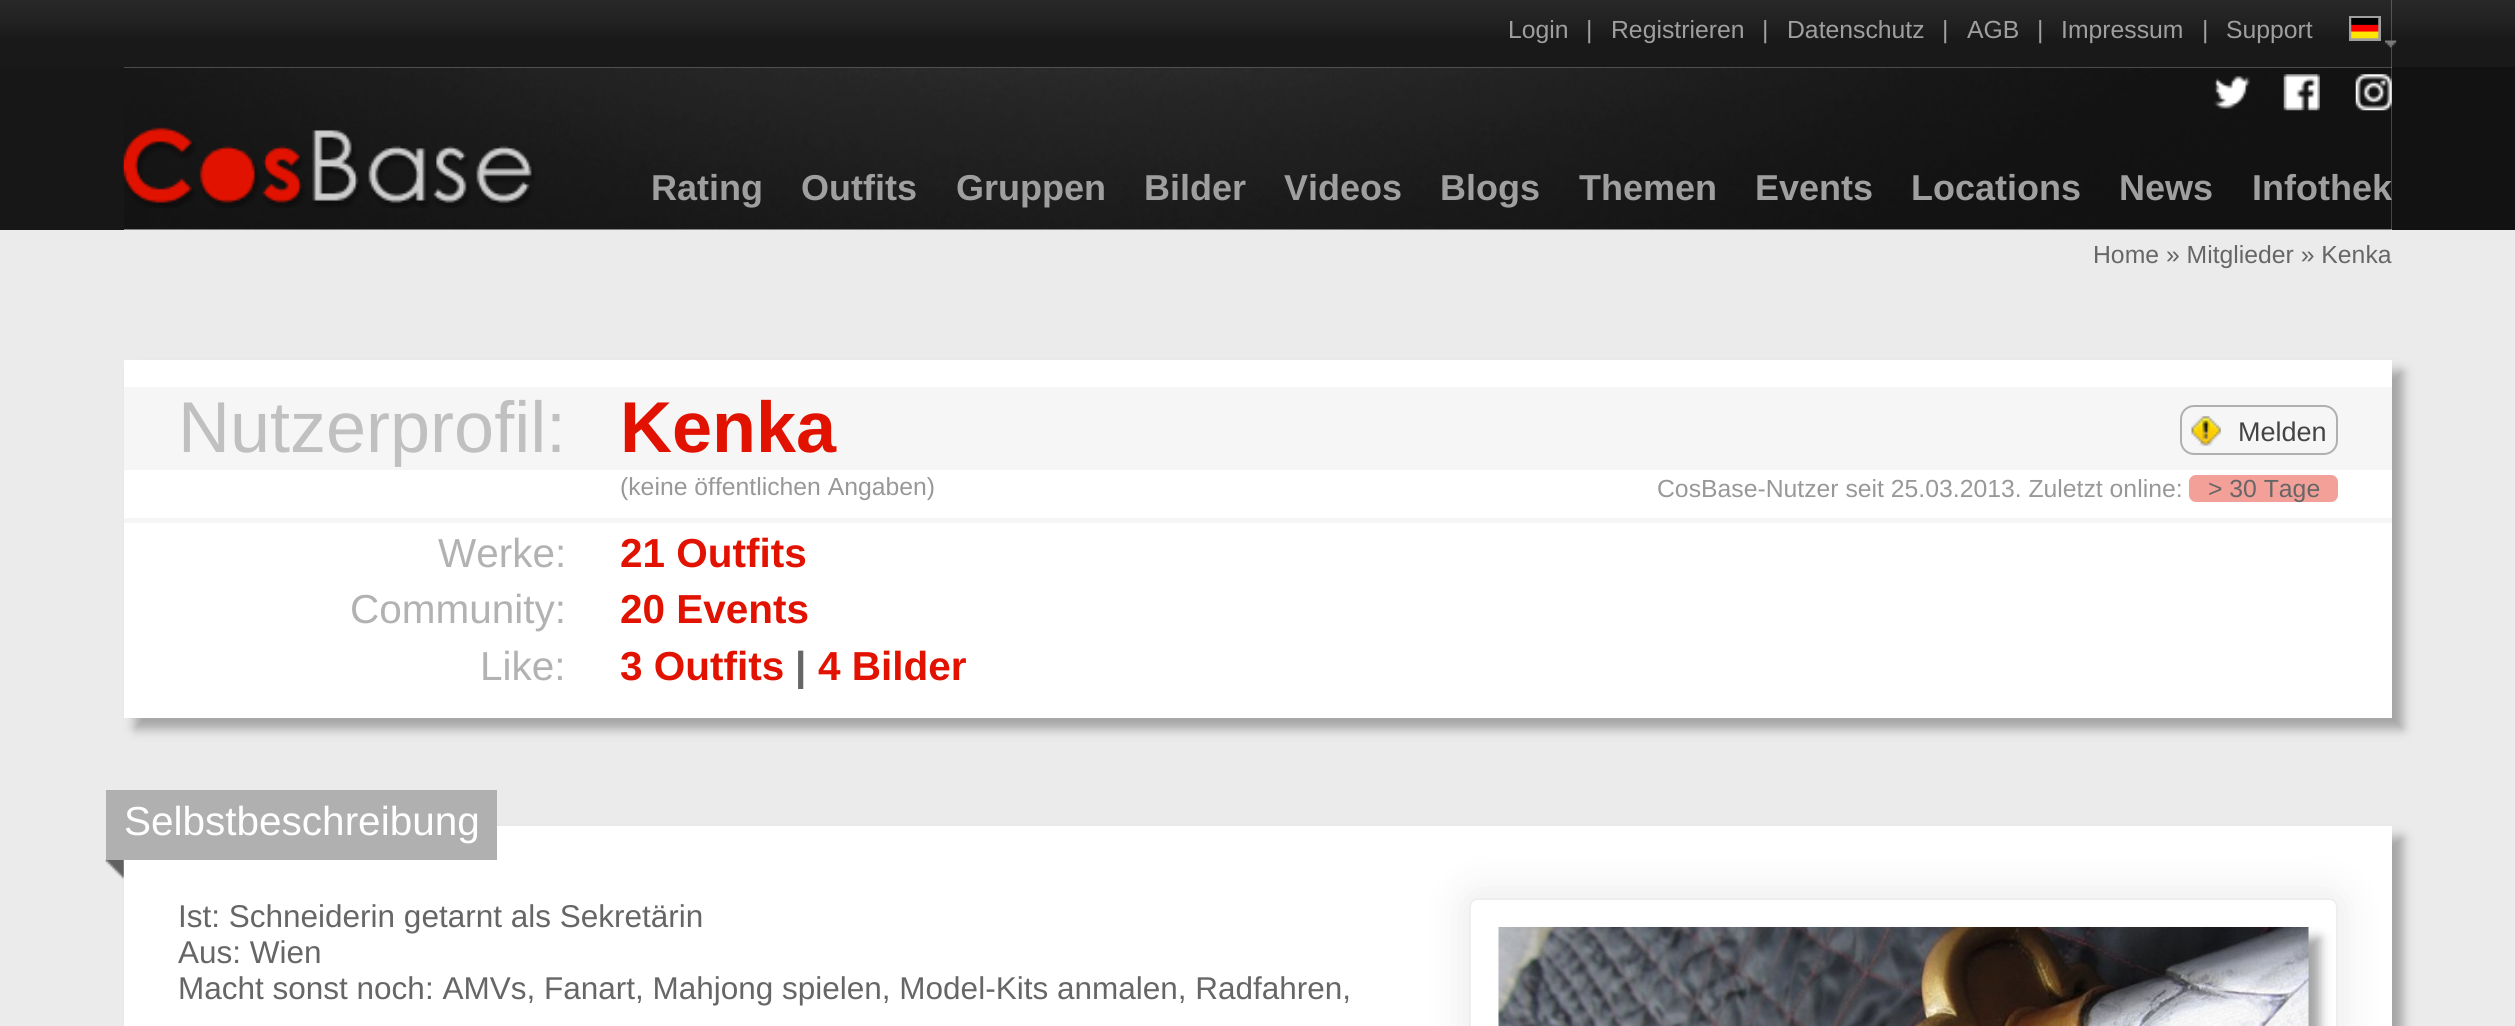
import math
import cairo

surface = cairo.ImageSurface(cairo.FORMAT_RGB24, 2515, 1026)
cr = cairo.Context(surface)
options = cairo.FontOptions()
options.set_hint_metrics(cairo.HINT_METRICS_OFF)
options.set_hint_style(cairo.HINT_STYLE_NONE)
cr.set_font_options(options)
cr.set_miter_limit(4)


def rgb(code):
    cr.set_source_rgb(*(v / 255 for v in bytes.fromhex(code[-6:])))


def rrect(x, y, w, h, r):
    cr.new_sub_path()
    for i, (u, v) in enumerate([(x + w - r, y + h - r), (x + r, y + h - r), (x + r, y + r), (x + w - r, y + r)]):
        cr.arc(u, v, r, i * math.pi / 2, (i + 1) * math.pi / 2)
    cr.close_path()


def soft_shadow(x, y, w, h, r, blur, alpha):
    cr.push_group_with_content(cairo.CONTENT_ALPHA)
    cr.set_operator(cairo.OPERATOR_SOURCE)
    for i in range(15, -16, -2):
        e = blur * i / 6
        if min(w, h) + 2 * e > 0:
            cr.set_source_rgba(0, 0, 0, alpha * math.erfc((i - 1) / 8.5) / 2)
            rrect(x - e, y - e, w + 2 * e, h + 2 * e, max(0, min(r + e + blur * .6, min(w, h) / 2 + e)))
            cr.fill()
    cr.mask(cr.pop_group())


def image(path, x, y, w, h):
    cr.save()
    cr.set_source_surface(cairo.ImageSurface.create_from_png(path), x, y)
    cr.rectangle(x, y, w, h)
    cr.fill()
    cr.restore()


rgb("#ebebeb")
cr.paint()
image("img/1.png", 0, 0, 124, 67)
image("img/5.png", 124, 67, 2268, 163)
image("img/2.png", 124, 0, 2268, 68)
rgb("#9f9f9f")
cr.rectangle(2349, 16, 32, 25)
cr.fill()
image("img/3.png", 2351, 18, 28, 21)
image("img/13.png", 2392, 0, 123, 67)
image("img/4.png", 2385, 40, 12, 8)
image("img/6.png", 2214, 76, 36, 33)
image("img/7.png", 2283, 74, 37, 37)
image("img/8.png", 2355, 74, 37, 37)
rgb("#171717")
cr.rectangle(0, 67, 124, 163)
cr.fill()
image("img/9.png", 123, 127, 412, 81)
rgb("#a4a4a4")
soft_shadow(135, 371, 2268, 358, 0, 5.5, 1)
rgb("#ffffff")
cr.rectangle(124, 360, 2268, 358)
cr.fill()
rgb("#f6f6f6")
cr.rectangle(124, 387, 2268, 83)
cr.fill()
rrect(2181, 406, 156, 48, 13)
rgb("#b0b0b0")
cr.stroke()
image("img/10.png", 2191, 416, 30, 30)
rgb("#f3a099")
rrect(2189, 475, 149, 27, 7)
cr.fill()
rgb("#f6f6f6")
cr.rectangle(124, 518, 2268, 5)
cr.fill()
image("img/11.png", 105, 859, 19, 21)
rgb("#a4a4a4")
soft_shadow(135, 837, 2268, 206, 0, 5.5, 1)
rgb("#ffffff")
cr.rectangle(124, 826, 2268, 200)
cr.fill()
rgb("#b0b0b0")
cr.rectangle(106, 790, 391, 70)
cr.fill()
cr.save()
cr.set_fill_rule(cairo.FILL_RULE_EVEN_ODD)
cr.new_path()
cr.move_to(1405, 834)
cr.line_to(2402, 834)
cr.line_to(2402, 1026)
cr.line_to(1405, 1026)
cr.close_path()
cr.move_to(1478, 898)
cr.line_to(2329, 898)
cr.curve_to(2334, 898, 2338, 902, 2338, 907)
cr.line_to(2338, 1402)
cr.curve_to(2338, 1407, 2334, 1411, 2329, 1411)
cr.line_to(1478, 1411)
cr.curve_to(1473, 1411, 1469, 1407, 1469, 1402)
cr.line_to(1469, 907)
cr.curve_to(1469, 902, 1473, 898, 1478, 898)
cr.close_path()
cr.clip()
rgb("#eeeeee")
soft_shadow(1460, 889, 887, 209, 18, 18, 1)
cr.restore()
rrect(1470, 899, 867, 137, 8)
rgb("#eeeeee")
cr.stroke()
rgb("#a4a4a4")
soft_shadow(1510, 938, 810, 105, 0, 5.5, 1)
image("img/12.png", 1498, 927, 811, 99)
rgb("#121212")
cr.rectangle(2392, 67, 123, 163)
cr.fill()
cr.select_font_face("Liberation Sans")
cr.set_font_size(24.75)
rgb("#9f9f9f")
for x, y, s in [
    (1508, 38, "Login"),
    (1586, 38, "|"),
    (1611, 38, "Registrieren"),
    (1762, 38, "|"),
    (1787, 38, "Datenschutz"),
    (1942, 38, "|"),
    (1967, 38, "AGB"),
    (2037, 38, "|"),
    (2061, 38, "Impressum"),
    (2202, 38, "|"),
    (2226, 38, "Support"),
]:
    cr.move_to(x, y)
    cr.show_text(s)
cr.select_font_face("Liberation Sans", cairo.FONT_SLANT_NORMAL, cairo.FONT_WEIGHT_BOLD)
cr.set_font_size(36)
for x, y, s in [
    (651, 200, "Rating"),
    (801, 200, "Outfits"),
    (956, 200, "Gruppen"),
    (1144, 200, "Bilder"),
    (1284, 200, "Videos"),
    (1440, 200, "Blogs"),
    (1579, 200, "Themen"),
    (1755, 200, "Events"),
    (1911, 200, "Locations"),
    (2119, 200, "News"),
    (2252, 200, "Infothek"),
]:
    cr.move_to(x, y)
    cr.show_text(s)
cr.select_font_face("Liberation Sans")
cr.set_font_size(24.75)
rgb("#666666")
cr.move_to(2093, 263)
cr.show_text("Home » Mitglieder » Kenka")
cr.set_font_size(72)
rgb("#c0c0c0")
cr.move_to(178, 452)
cr.show_text("Nutzerprofil:")
cr.select_font_face("Liberation Sans", cairo.FONT_SLANT_NORMAL, cairo.FONT_WEIGHT_BOLD)
rgb("#e21200")
cr.move_to(620, 452)
cr.show_text("Kenka")
cr.select_font_face("Liberation Sans")
cr.set_font_size(27)
rgb("#444444")
cr.move_to(2238, 441)
cr.show_text("Melden")
cr.set_font_size(24.75)
rgb("#989898")
cr.move_to(620, 495)
cr.show_text("(keine öffentlichen Angaben)")
cr.move_to(1657, 497)
cr.show_text("CosBase-Nutzer seit 25.03.2013. Zuletzt online:")
rgb("#666666")
cr.move_to(2208, 497)
cr.show_text("> 30 Tage")
cr.set_font_size(40.5)
rgb("#b2b2b2")
cr.move_to(438, 567)
cr.show_text("Werke:")
cr.select_font_face("Liberation Sans", cairo.FONT_SLANT_NORMAL, cairo.FONT_WEIGHT_BOLD)
rgb("#e21200")
cr.move_to(620, 567)
cr.show_text("21 Outfits")
cr.select_font_face("Liberation Sans")
rgb("#b2b2b2")
cr.move_to(350, 623)
cr.show_text("Community:")
cr.select_font_face("Liberation Sans", cairo.FONT_SLANT_NORMAL, cairo.FONT_WEIGHT_BOLD)
rgb("#e21200")
cr.move_to(620, 623)
cr.show_text("20 Events")
cr.select_font_face("Liberation Sans")
rgb("#b2b2b2")
cr.move_to(480, 680)
cr.show_text("Like:")
cr.select_font_face("Liberation Sans", cairo.FONT_SLANT_NORMAL, cairo.FONT_WEIGHT_BOLD)
rgb("#e21200")
cr.move_to(620, 680)
cr.show_text("3 Outfits")
rgb("#666666")
cr.move_to(795, 680)
cr.show_text("|")
rgb("#e21200")
cr.move_to(818, 680)
cr.show_text("4 Bilder")
cr.select_font_face("Liberation Sans")
rgb("#ffffff")
cr.move_to(124, 835)
cr.show_text("Selbstbeschreibung")
cr.set_font_size(31.5)
rgb("#666666")
for x, y, s in [
    (178, 927, "Ist: Schneiderin getarnt als Sekretärin"),
    (178, 963, "Aus: Wien"),
    (178, 999, "Macht sonst noch: AMVs, Fanart, Mahjong spielen, Model-Kits anmalen, Radfahren,"),
]:
    cr.move_to(x, y)
    cr.show_text(s)
surface.write_to_png("page.png")
